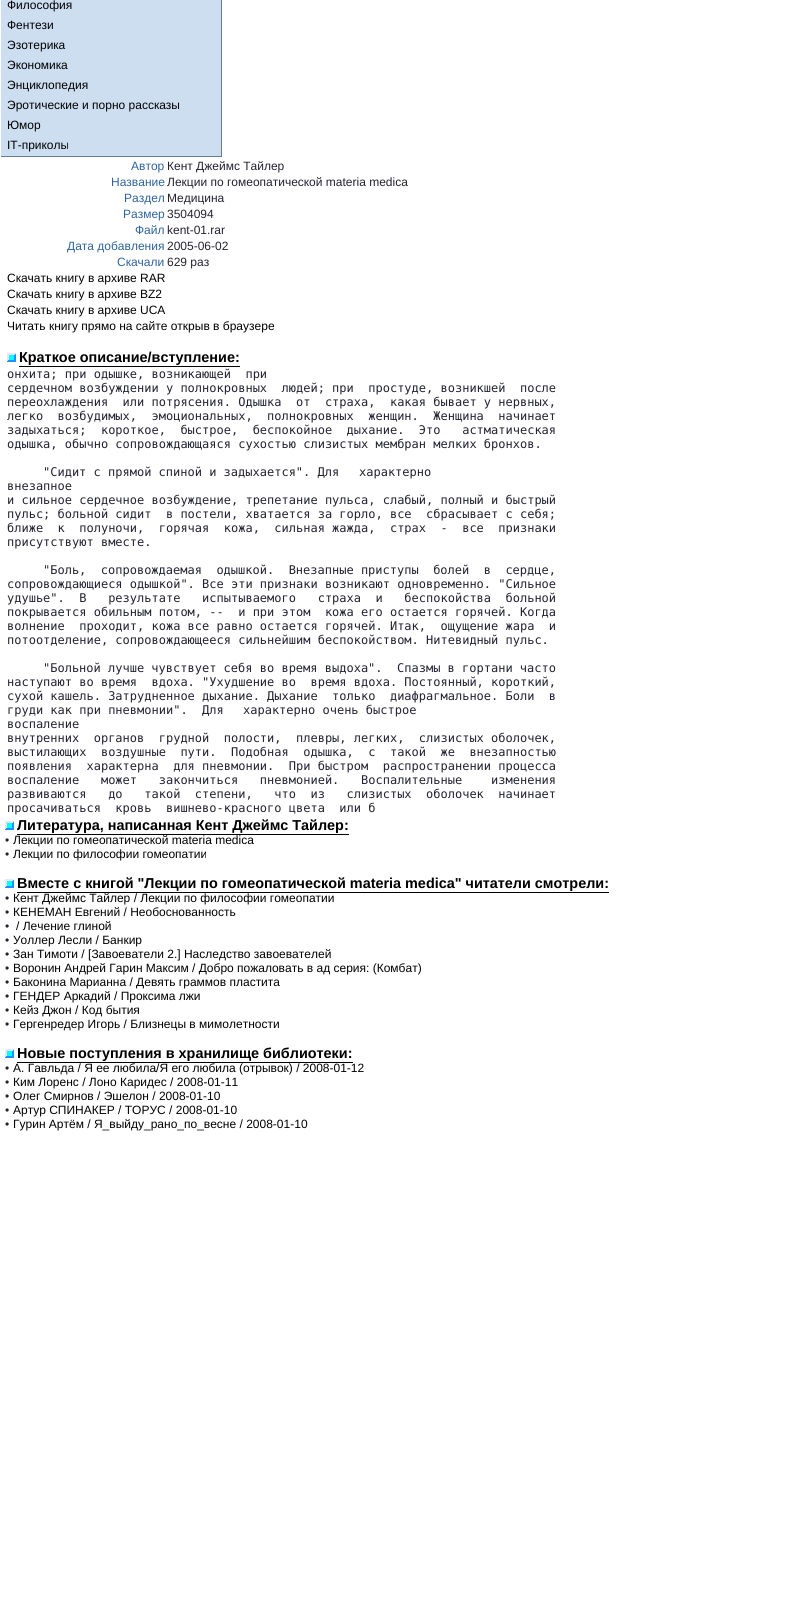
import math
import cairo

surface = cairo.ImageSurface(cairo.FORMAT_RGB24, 786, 1611)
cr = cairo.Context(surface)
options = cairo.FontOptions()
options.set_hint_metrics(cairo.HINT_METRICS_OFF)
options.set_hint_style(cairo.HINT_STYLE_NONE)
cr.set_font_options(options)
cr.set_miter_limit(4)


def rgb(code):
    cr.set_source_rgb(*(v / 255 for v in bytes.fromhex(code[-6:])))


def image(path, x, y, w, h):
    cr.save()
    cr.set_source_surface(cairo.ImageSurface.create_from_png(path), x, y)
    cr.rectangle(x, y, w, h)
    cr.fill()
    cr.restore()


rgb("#ffffff")
cr.paint()
for x, y, w, h, color in [
    (1, 0, 220, 156, "#ccdef0"),
    (221, 0, 1, 157, "#667e90"),
    (0, 156, 222, 1, "#667e90"),
    (0, 156, 1, 1, "#ffffff"),
]:
    rgb(color)
    cr.rectangle(x, y, w, h)
    cr.fill()
image("img/1.png", 7, 353, 9, 9)
rgb("#000000")
cr.rectangle(19, 366, 221, 1)
cr.fill()
image("img/1.png", 5, 821, 9, 9)
cr.rectangle(17, 834, 332, 1)
cr.fill()
image("img/1.png", 5, 879, 9, 9)
cr.rectangle(17, 892, 592, 1)
cr.fill()
image("img/1.png", 5, 1049, 9, 9)
cr.rectangle(17, 1062, 336, 1)
cr.fill()
cr.select_font_face("Liberation Sans")
cr.set_font_size(12)
for x, y, s in [
    (7, 9, "Философия"),
    (7, 29, "Фентези"),
    (7, 49, "Эзотерика"),
    (7, 69, "Экономика"),
    (7, 89, "Энциклопедия"),
    (7, 109, "Эротические и порно рассказы"),
    (7, 129, "Юмор"),
    (7, 149, "IT-приколы"),
]:
    cr.move_to(x, y)
    cr.show_text(s)
rgb("#2e649b")
cr.move_to(131, 170)
cr.show_text("Автор")
rgb("#222233")
cr.move_to(167, 170)
cr.show_text("Кент Джеймс Тайлер")
rgb("#2e649b")
cr.move_to(111, 186)
cr.show_text("Название")
rgb("#222233")
cr.move_to(167, 186)
cr.show_text("Лекции по гомеопатической materia medica")
rgb("#2e649b")
cr.move_to(124, 202)
cr.show_text("Раздел")
rgb("#222233")
cr.move_to(167, 202)
cr.show_text("Медицина")
rgb("#2e649b")
cr.move_to(123, 218)
cr.show_text("Размер")
rgb("#222233")
cr.move_to(167, 218)
cr.show_text("3504094")
rgb("#2e649b")
cr.move_to(135, 234)
cr.show_text("Файл")
rgb("#222233")
cr.move_to(167, 234)
cr.show_text("kent-01.rar")
rgb("#2e649b")
cr.move_to(67, 250)
cr.show_text("Дата добавления")
rgb("#222233")
cr.move_to(167, 250)
cr.show_text("2005-06-02")
rgb("#2e649b")
cr.move_to(117, 266)
cr.show_text("Скачали")
rgb("#222233")
cr.move_to(167, 266)
cr.show_text("629 раз")
rgb("#000000")
for x, y, s in [
    (7, 282, "Скачать книгу в архиве RAR"),
    (7, 298, "Скачать книгу в архиве BZ2"),
    (7, 314, "Скачать книгу в архиве UCA"),
    (7, 330, "Читать книгу прямо на сайте открыв в браузере"),
]:
    cr.move_to(x, y)
    cr.show_text(s)
cr.select_font_face("Liberation Sans", cairo.FONT_SLANT_NORMAL, cairo.FONT_WEIGHT_BOLD)
cr.set_font_size(14.4)
cr.move_to(19, 362)
cr.show_text("Краткое описание/вступление:")
cr.select_font_face("DejaVu Sans Mono")
cr.set_font_size(12)
rgb("#222233")
for x, y, s in [
    (7, 378, "онхита; при одышке, возникающей  при"),
    (7, 392, "сердечном возбуждении у полнокровных  людей; при  простуде, возникшей  после"),
    (7, 406, "переохлаждения  или потрясения. Одышка  от  страха,  какая бывает у нервных,"),
    (7, 420, "легко  возбудимых,  эмоциональных,  полнокровных  женщин.  Женщина  начинает"),
    (7, 434, "задыхаться;  короткое,  быстрое,  беспокойное  дыхание.  Это   астматическая"),
    (7, 448, "одышка, обычно сопровождающаяся сухостью слизистых мембран мелких бронхов."),
    (43, 476, "\"Сидит с прямой спиной и задыхается\". Для"),
    (359, 476, "характерно"),
    (7, 490, "внезапное"),
    (7, 504, "и сильное сердечное возбуждение, трепетание пульса, слабый, полный и быстрый"),
    (7, 518, "пульс; больной сидит  в постели, хватается за горло, все  сбрасывает с себя;"),
    (7, 532, "ближе  к  полуночи,  горячая  кожа,  сильная жажда,  страх  -  все  признаки"),
    (7, 546, "присутствуют вместе."),
    (43, 574, "\"Боль,  сопровождаемая  одышкой.  Внезапные приступы  болей  в  сердце,"),
    (7, 588, "сопровождающиеся одышкой\". Все эти признаки возникают одновременно. \"Сильное"),
    (7, 602, "удушье\".  В   результате   испытываемого   страха  и   беспокойства  больной"),
    (7, 616, "покрывается обильным потом, --  и при этом  кожа его остается горячей. Когда"),
    (7, 630, "волнение  проходит, кожа все равно остается горячей. Итак,  ощущение жара  и"),
    (7, 644, "потоотделение, сопровождающееся сильнейшим беспокойством. Нитевидный пульс."),
    (43, 672, "\"Больной лучше чувствует себя во время выдоха\".  Спазмы в гортани часто"),
    (7, 686, "наступают во время  вдоха. \"Ухудшение во  время вдоха. Постоянный, короткий,"),
    (7, 700, "сухой кашель. Затрудненное дыхание. Дыхание  только  диафрагмальное. Боли  в"),
    (7, 714, "груди как при пневмонии\".  Для"),
    (243, 714, "характерно очень быстрое"),
    (7, 728, "воспаление"),
    (7, 742, "внутренних  органов  грудной  полости,  плевры, легких,  слизистых оболочек,"),
    (7, 756, "выстилающих  воздушные  пути.  Подобная  одышка,  с  такой  же  внезапностью"),
    (7, 770, "появления  характерна  для пневмонии.  При быстром  распространении процесса"),
    (7, 784, "воспаление   может   закончиться   пневмонией.   Воспалительные    изменения"),
    (7, 798, "развиваются   до   такой  степени,   что  из   слизистых  оболочек  начинает"),
    (7, 812, "просачиваться  кровь  вишнево-красного цвета  или б"),
]:
    cr.move_to(x, y)
    cr.show_text(s)
cr.select_font_face("Liberation Sans", cairo.FONT_SLANT_NORMAL, cairo.FONT_WEIGHT_BOLD)
cr.set_font_size(14.4)
rgb("#000000")
cr.move_to(17, 830)
cr.show_text("Литература, написанная Кент Джеймс Тайлер:")
cr.select_font_face("Liberation Sans")
cr.set_font_size(12)
rgb("#222233")
cr.move_to(5, 844)
cr.show_text("•")
rgb("#000000")
cr.move_to(13, 844)
cr.show_text("Лекции по гомеопатической materia medica")
rgb("#222233")
cr.move_to(5, 858)
cr.show_text("•")
rgb("#000000")
cr.move_to(13, 858)
cr.show_text("Лекции по философии гомеопатии")
cr.select_font_face("Liberation Sans", cairo.FONT_SLANT_NORMAL, cairo.FONT_WEIGHT_BOLD)
cr.set_font_size(14.4)
cr.move_to(17, 888)
cr.show_text("Вместе с книгой \"Лекции по гомеопатической materia medica\" читатели смотрели:")
cr.select_font_face("Liberation Sans")
cr.set_font_size(12)
rgb("#222233")
cr.move_to(5, 902)
cr.show_text("•")
rgb("#000000")
cr.move_to(13, 902)
cr.show_text("Кент Джеймс Тайлер / Лекции по философии гомеопатии")
rgb("#222233")
cr.move_to(5, 916)
cr.show_text("•")
rgb("#000000")
cr.move_to(13, 916)
cr.show_text("КЕНЕМАН Евгений / Необоснованность")
rgb("#222233")
cr.move_to(5, 930)
cr.show_text("•")
rgb("#000000")
cr.move_to(16, 930)
cr.show_text("/ Лечение глиной")
rgb("#222233")
cr.move_to(5, 944)
cr.show_text("•")
rgb("#000000")
cr.move_to(13, 944)
cr.show_text("Уоллер Лесли / Банкир")
rgb("#222233")
cr.move_to(5, 958)
cr.show_text("•")
rgb("#000000")
cr.move_to(13, 958)
cr.show_text("Зан Тимоти / [Завоеватели 2.] Наследство завоевателей")
rgb("#222233")
cr.move_to(5, 972)
cr.show_text("•")
rgb("#000000")
cr.move_to(13, 972)
cr.show_text("Воронин Андрей Гарин Максим / Добро пожаловать в ад серия: (Комбат)")
rgb("#222233")
cr.move_to(5, 986)
cr.show_text("•")
rgb("#000000")
cr.move_to(13, 986)
cr.show_text("Баконина Марианна / Девять граммов пластита")
rgb("#222233")
cr.move_to(5, 1000)
cr.show_text("•")
rgb("#000000")
cr.move_to(13, 1000)
cr.show_text("ГЕНДЕР Аркадий / Проксима лжи")
rgb("#222233")
cr.move_to(5, 1014)
cr.show_text("•")
rgb("#000000")
cr.move_to(13, 1014)
cr.show_text("Кейз Джон / Код бытия")
rgb("#222233")
cr.move_to(5, 1028)
cr.show_text("•")
rgb("#000000")
cr.move_to(13, 1028)
cr.show_text("Гергенредер Игорь / Близнецы в мимолетности")
cr.select_font_face("Liberation Sans", cairo.FONT_SLANT_NORMAL, cairo.FONT_WEIGHT_BOLD)
cr.set_font_size(14.4)
cr.move_to(17, 1058)
cr.show_text("Новые поступления в хранилище библиотеки:")
cr.select_font_face("Liberation Sans")
cr.set_font_size(12)
rgb("#222233")
cr.move_to(5, 1072)
cr.show_text("•")
rgb("#000000")
cr.move_to(13, 1072)
cr.show_text("А. Гавльда / Я ее любила/Я его любила (отрывок) / 2008-01-12")
rgb("#222233")
cr.move_to(5, 1086)
cr.show_text("•")
rgb("#000000")
cr.move_to(13, 1086)
cr.show_text("Ким Лоренс / Лоно Каридес / 2008-01-11")
rgb("#222233")
cr.move_to(5, 1100)
cr.show_text("•")
rgb("#000000")
cr.move_to(13, 1100)
cr.show_text("Олег Смирнов / Эшелон / 2008-01-10")
rgb("#222233")
cr.move_to(5, 1114)
cr.show_text("•")
rgb("#000000")
cr.move_to(13, 1114)
cr.show_text("Артур СПИНАКЕР / ТОРУС / 2008-01-10")
rgb("#222233")
cr.move_to(5, 1128)
cr.show_text("•")
rgb("#000000")
cr.move_to(13, 1128)
cr.show_text("Гурин Артём / Я_выйду_рано_по_весне / 2008-01-10")
surface.write_to_png("page.png")
